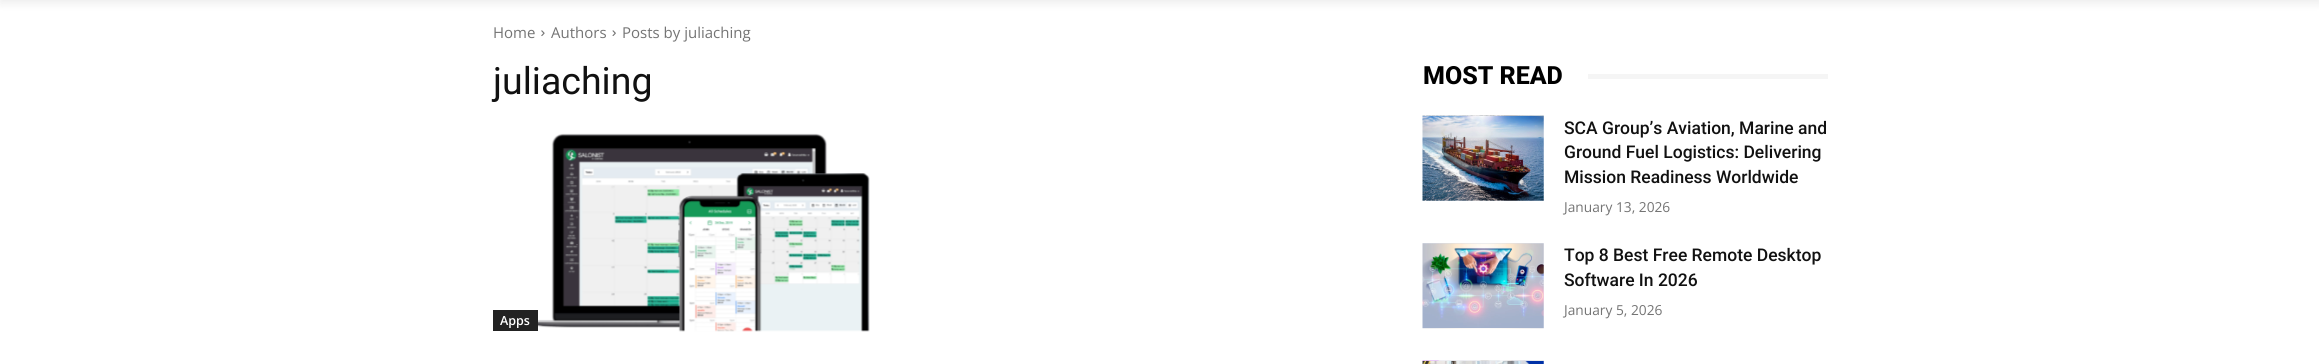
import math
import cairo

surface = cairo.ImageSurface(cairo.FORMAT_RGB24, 2319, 364)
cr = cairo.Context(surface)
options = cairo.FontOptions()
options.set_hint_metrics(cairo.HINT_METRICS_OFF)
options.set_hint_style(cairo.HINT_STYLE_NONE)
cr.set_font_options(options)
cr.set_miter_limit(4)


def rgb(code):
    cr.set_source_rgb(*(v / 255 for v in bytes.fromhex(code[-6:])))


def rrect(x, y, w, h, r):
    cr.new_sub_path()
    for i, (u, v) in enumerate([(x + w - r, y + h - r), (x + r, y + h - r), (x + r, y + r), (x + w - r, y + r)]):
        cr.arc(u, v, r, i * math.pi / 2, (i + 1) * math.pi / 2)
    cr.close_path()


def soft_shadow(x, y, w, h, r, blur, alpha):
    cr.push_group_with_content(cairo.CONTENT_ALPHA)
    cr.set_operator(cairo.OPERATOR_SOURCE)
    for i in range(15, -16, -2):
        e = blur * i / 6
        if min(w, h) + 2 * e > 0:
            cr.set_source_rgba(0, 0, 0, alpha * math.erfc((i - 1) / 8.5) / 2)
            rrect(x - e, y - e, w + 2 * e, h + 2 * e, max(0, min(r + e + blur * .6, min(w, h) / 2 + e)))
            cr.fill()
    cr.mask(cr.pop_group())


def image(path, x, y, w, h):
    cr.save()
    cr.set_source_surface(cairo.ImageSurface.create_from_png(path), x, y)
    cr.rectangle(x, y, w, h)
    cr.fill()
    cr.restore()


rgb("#ffffff")
cr.paint()
rgb("#000000")
soft_shadow(0, -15, 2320, 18, 0, 5, 0.08)
image("img/1.png", 541, 30, 4, 7)
image("img/2.png", 612, 30, 4, 6)
image("img/3.png", 521, 133, 349, 199)
rgb("#222222")
cr.rectangle(493, 310, 45, 21)
cr.fill()
rgb("#f5f5f5")
cr.rectangle(1588, 74, 240, 5)
cr.fill()
image("img/4.png", 1422, 115, 122, 86)
image("img/5.png", 1422, 243, 122, 86)
image("img/6.png", 1422, 360, 122, 4)
cr.select_font_face("Open Sans")
cr.set_font_size(15)
rgb("#747474")
for x, y, s in [
    (493, 38, "Home"),
    (551, 38, "Authors"),
    (622, 38, "Posts by juliaching"),
]:
    cr.move_to(x, y)
    cr.show_text(s)
cr.select_font_face("Roboto")
cr.set_font_size(37.5)
rgb("#111111")
cr.move_to(493, 94)
cr.show_text("juliaching")
cr.select_font_face("Open Sans SemiBold")
cr.set_font_size(12.5)
rgb("#ffffff")
cr.move_to(500, 325)
cr.show_text("Apps")
cr.select_font_face("Roboto ExtraBold")
cr.set_font_size(25)
rgb("#000000")
cr.move_to(1423, 84)
cr.show_text("MOST READ")
cr.select_font_face("Roboto Medium")
cr.set_font_size(17.5)
rgb("#111111")
for x, y, s in [
    (1564, 134, "SCA Group’s Aviation, Marine and"),
    (1564, 158, "Ground Fuel Logistics: Delivering"),
    (1564, 183, "Mission Readiness Worldwide"),
]:
    cr.move_to(x, y)
    cr.show_text(s)
cr.select_font_face("Open Sans")
cr.set_font_size(13.75)
rgb("#747474")
cr.move_to(1564, 212)
cr.show_text("January 13, 2026")
cr.select_font_face("Roboto Medium")
cr.set_font_size(17.5)
rgb("#111111")
cr.move_to(1564, 261)
cr.show_text("Top 8 Best Free Remote Desktop")
cr.move_to(1564, 286)
cr.show_text("Software In 2026")
cr.select_font_face("Open Sans")
cr.set_font_size(13.75)
rgb("#747474")
cr.move_to(1564, 315)
cr.show_text("January 5, 2026")
surface.write_to_png("page.png")
